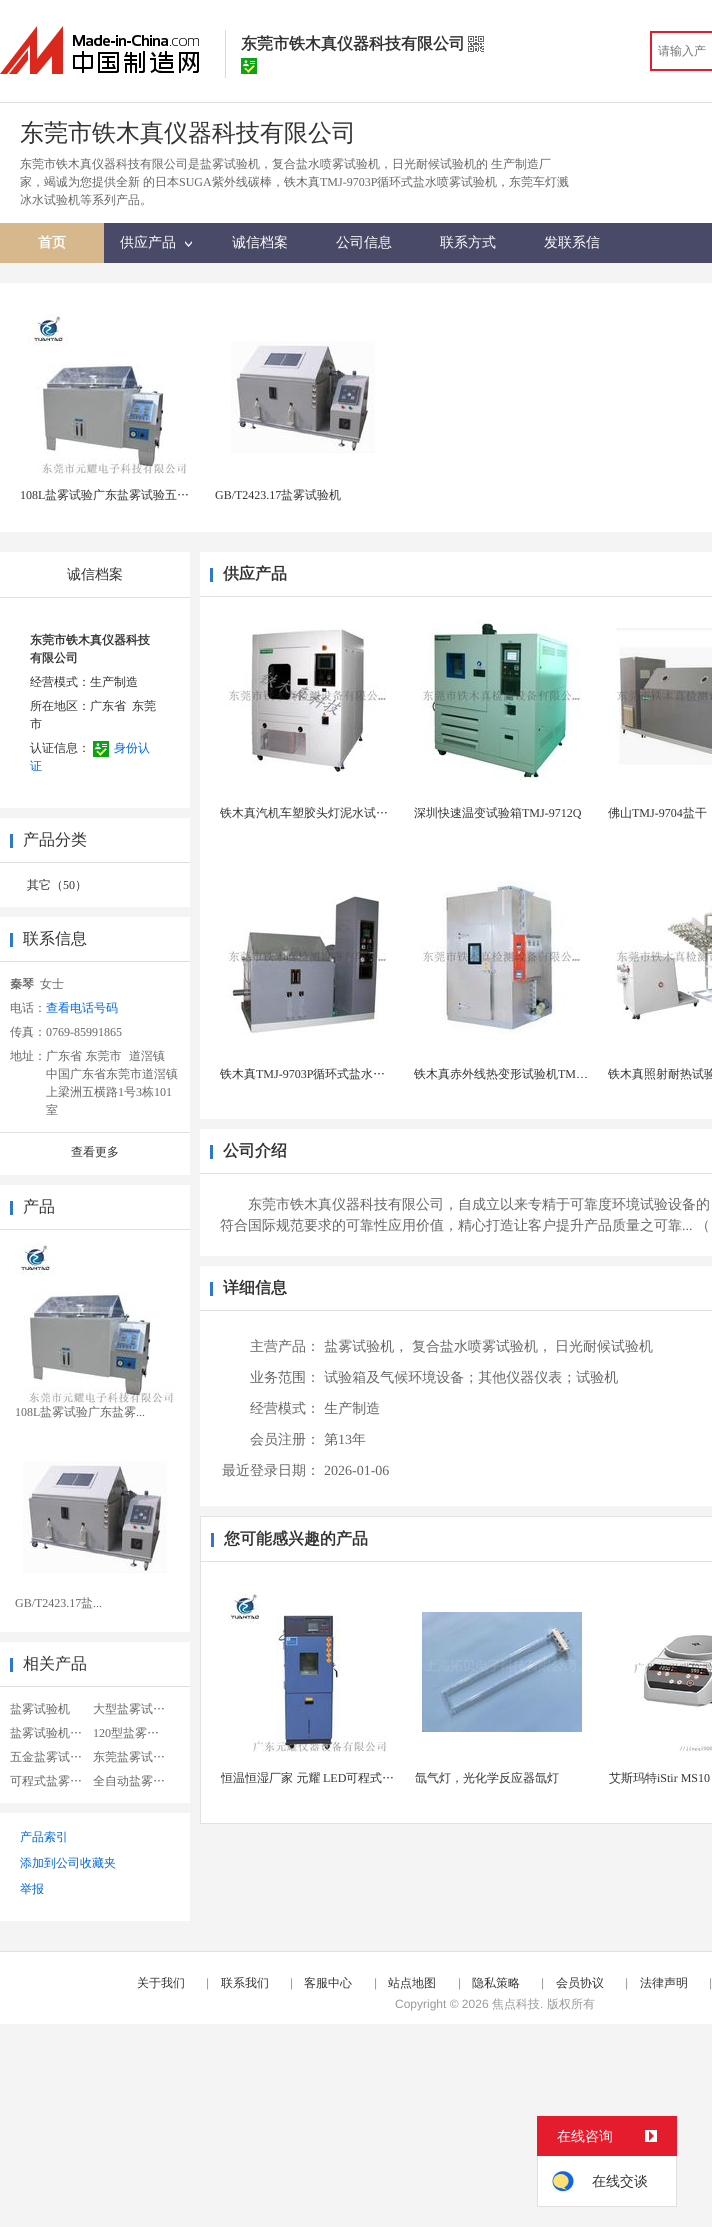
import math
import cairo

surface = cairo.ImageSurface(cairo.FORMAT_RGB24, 712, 2227)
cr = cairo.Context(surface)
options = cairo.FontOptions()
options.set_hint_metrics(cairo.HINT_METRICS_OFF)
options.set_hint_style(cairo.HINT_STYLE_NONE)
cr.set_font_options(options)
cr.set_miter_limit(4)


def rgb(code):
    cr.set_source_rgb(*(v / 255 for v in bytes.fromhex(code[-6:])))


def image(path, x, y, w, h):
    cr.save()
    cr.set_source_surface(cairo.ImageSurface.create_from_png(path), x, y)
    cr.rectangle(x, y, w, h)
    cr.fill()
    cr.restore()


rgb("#f4f4f4")
cr.paint()
rgb("#ffffff")
cr.rectangle(0, 0, 712, 102)
cr.fill()
image("img/1.png", 0, 26, 199, 48)
rgb("#d9d9d9")
cr.rectangle(225, 30, 1, 48)
cr.fill()
image("img/2.png", 468, 36, 16, 16)
image("img/3.png", 241, 58, 16, 16)
for x, y, w, h, color in [
    (650, 31, 62, 2, "#e41c2e"),
    (650, 69, 62, 2, "#e41c2e"),
    (650, 31, 2, 40, "#e41c2e"),
    (0, 103, 712, 120, "#ffffff"),
    (0, 102, 712, 1, "#e0e0e0"),
    (104, 223, 608, 40, "#494a67"),
    (0, 223, 104, 40, "#d6b88c"),
]:
    rgb(color)
    cr.rectangle(x, y, w, h)
    cr.fill()
image("img/4.png", 185, 241, 7, 6)
rgb("#ffffff")
cr.rectangle(0, 283, 712, 249)
cr.fill()
image("img/5.png", 28, 314, 160, 160)
image("img/6.png", 231, 341, 144, 112)
cr.rectangle(0, 552, 190, 256)
cr.fill()
rgb("#e0e0e0")
cr.rectangle(0, 597, 190, 1)
cr.fill()
image("img/3.png", 93, 741, 16, 16)
for x, y, w, h, color in [
    (0, 818, 190, 89, "#ffffff"),
    (0, 862, 190, 1, "#e0e0e0"),
    (10, 834, 3, 14, "#2f78ca"),
    (0, 917, 190, 258, "#ffffff"),
    (0, 961, 190, 1, "#e0e0e0"),
    (10, 933, 3, 14, "#2f78ca"),
    (0, 1132, 190, 1, "#e0e0e0"),
    (0, 1185, 190, 447, "#ffffff"),
    (0, 1229, 190, 1, "#e0e0e0"),
    (10, 1201, 3, 14, "#2f78ca"),
]:
    rgb(color)
    cr.rectangle(x, y, w, h)
    cr.fill()
image("img/5.png", 15, 1243, 160, 160)
image("img/6.png", 23, 1461, 144, 112)
for x, y, w, h, color in [
    (0, 1642, 190, 161, "#ffffff"),
    (0, 1686, 190, 1, "#e0e0e0"),
    (10, 1658, 3, 14, "#2f78ca"),
    (0, 1813, 190, 108, "#ffffff"),
    (200, 552, 512, 567, "#ffffff"),
    (200, 596, 512, 1, "#e0e0e0"),
    (210, 568, 3, 14, "#2f78ca"),
]:
    rgb(color)
    cr.rectangle(x, y, w, h)
    cr.fill()
image("img/7.png", 227, 628, 160, 147)
image("img/8.png", 421, 620, 160, 160)
image("img/9.png", 615, 628, 97, 137)
image("img/10.png", 227, 890, 160, 143)
image("img/11.png", 421, 881, 160, 155)
image("img/12.png", 615, 897, 97, 128)
for x, y, w, h, color in [
    (200, 1129, 512, 127, "#ffffff"),
    (200, 1173, 512, 1, "#e0e0e0"),
    (210, 1145, 3, 14, "#2f78ca"),
    (200, 1266, 512, 240, "#ffffff"),
    (200, 1310, 512, 1, "#e0e0e0"),
    (210, 1282, 3, 14, "#2f78ca"),
]:
    rgb(color)
    cr.rectangle(x, y, w, h)
    cr.fill()
rgb("#ffffff")
cr.rectangle(200.5, 1516.5, 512, 307)
cr.fill_preserve()
rgb("#e2e2e2")
cr.set_line_width(1)
cr.stroke()
rgb("#e0e0e0")
cr.rectangle(201, 1561, 511, 1)
cr.fill()
rgb("#2f78ca")
cr.rectangle(211, 1533, 3, 14)
cr.fill()
image("img/13.png", 228, 1592, 160, 160)
image("img/14.png", 422, 1612, 160, 120)
image("img/15.png", 632, 1633, 80, 119)
for x, y, w, h, color in [
    (0, 1952, 712, 72, "#ffffff"),
    (0, 1951, 712, 1, "#e0e0e0"),
    (537, 2116, 140, 40, "#e41c2e"),
    (645, 2130, 12, 12, "#ffffff"),
]:
    rgb(color)
    cr.rectangle(x, y, w, h)
    cr.fill()
rgb("#e41c2e")
cr.new_path()
cr.move_to(649, 2141)
cr.line_to(649, 2131)
cr.line_to(654, 2136)
cr.close_path()
cr.fill()
for x, y, w, h, color in [
    (538, 2156, 138, 50, "#ffffff"),
    (676, 2156, 1, 51, "#e0e0e0"),
    (537, 2206, 140, 1, "#e0e0e0"),
    (537, 2156, 1, 51, "#e0e0e0"),
]:
    rgb(color)
    cr.rectangle(x, y, w, h)
    cr.fill()
image("img/16.png", 552, 2171, 22, 21)
cr.select_font_face("WenQuanYi Zen Hei", cairo.FONT_SLANT_NORMAL, cairo.FONT_WEIGHT_BOLD)
cr.set_font_size(16)
rgb("#333333")
cr.move_to(241, 49)
cr.show_text("东莞市铁木真仪器科技有限公司")
cr.select_font_face("WenQuanYi Zen Hei Medium")
cr.set_font_size(12)
rgb("#757575")
cr.move_to(658, 55)
cr.show_text("请输入产")
cr.set_font_size(24)
rgb("#333333")
cr.move_to(20, 141)
cr.show_text("东莞市铁木真仪器科技有限公司")
cr.set_font_size(12)
rgb("#666666")
for x, y, s in [
    (20, 168, "东莞市铁木真仪器科技有限公司是盐雾试验机，复合盐水喷雾试验机，日光耐候试验机的"),
    (491, 168, "生产制造厂"),
    (20, 186, "家，竭诚为您提供全新"),
    (143, 186, "的日本"),
]:
    cr.move_to(x, y)
    cr.show_text(s)
cr.select_font_face("Liberation Serif")
cr.move_to(179, 186)
cr.show_text("SUGA")
cr.select_font_face("WenQuanYi Zen Hei Medium")
cr.move_to(212, 186)
cr.show_text("紫外线碳棒，铁木真")
cr.select_font_face("Liberation Serif")
cr.move_to(320, 186)
cr.show_text("TMJ-9703P")
cr.select_font_face("WenQuanYi Zen Hei Medium")
cr.move_to(377, 186)
cr.show_text("循环式盐水喷雾试验机，东莞车灯溅")
cr.move_to(20, 204)
cr.show_text("冰水试验机等系列产品。")
cr.select_font_face("WenQuanYi Zen Hei", cairo.FONT_SLANT_NORMAL, cairo.FONT_WEIGHT_BOLD)
cr.set_font_size(14)
rgb("#ffffff")
cr.move_to(38, 247)
cr.show_text("首页")
cr.select_font_face("WenQuanYi Zen Hei Medium")
for x, y, s in [
    (120, 247, "供应产品"),
    (232, 247, "诚信档案"),
    (336, 247, "公司信息"),
    (440, 247, "联系方式"),
    (544, 247, "发联系信"),
]:
    cr.move_to(x, y)
    cr.show_text(s)
cr.select_font_face("Liberation Serif")
cr.set_font_size(12)
rgb("#333333")
cr.move_to(20, 499)
cr.show_text("108L")
cr.select_font_face("WenQuanYi Zen Hei Medium")
cr.move_to(45, 499)
cr.show_text("盐雾试验广东盐雾试验五…")
cr.select_font_face("Liberation Serif")
cr.move_to(215, 499)
cr.show_text("GB/T2423.17")
cr.select_font_face("WenQuanYi Zen Hei Medium")
cr.move_to(281, 499)
cr.show_text("盐雾试验机")
cr.set_font_size(14)
cr.move_to(67, 579)
cr.show_text("诚信档案")
cr.select_font_face("WenQuanYi Zen Hei", cairo.FONT_SLANT_NORMAL, cairo.FONT_WEIGHT_BOLD)
cr.set_font_size(12)
cr.move_to(30, 644)
cr.show_text("东莞市铁木真仪器科技")
cr.move_to(30, 662)
cr.show_text("有限公司")
cr.select_font_face("WenQuanYi Zen Hei Medium")
for x, y, s in [
    (30, 686, "经营模式：生产制造"),
    (30, 710, "所在地区：广东省"),
    (132, 710, "东莞"),
    (30, 728, "市"),
    (30, 752, "认证信息："),
]:
    cr.move_to(x, y)
    cr.show_text(s)
rgb("#0066dd")
cr.move_to(114, 752)
cr.show_text("身份认")
cr.move_to(30, 770)
cr.show_text("证")
cr.set_font_size(16)
rgb("#333333")
cr.move_to(23, 845)
cr.show_text("产品分类")
cr.set_font_size(12)
cr.move_to(27, 889)
cr.show_text("其它（")
cr.select_font_face("Liberation Serif")
cr.move_to(63, 889)
cr.show_text("50")
cr.select_font_face("WenQuanYi Zen Hei Medium")
cr.move_to(75, 889)
cr.show_text("）")
cr.set_font_size(16)
cr.move_to(23, 944)
cr.show_text("联系信息")
cr.select_font_face("WenQuanYi Zen Hei", cairo.FONT_SLANT_NORMAL, cairo.FONT_WEIGHT_BOLD)
cr.set_font_size(12)
rgb("#666666")
cr.move_to(10, 988)
cr.show_text("秦琴")
cr.select_font_face("WenQuanYi Zen Hei Medium")
cr.move_to(40, 988)
cr.show_text("女士")
cr.move_to(10, 1012)
cr.show_text("电话：")
rgb("#0066dd")
cr.move_to(46, 1012)
cr.show_text("查看电话号码")
rgb("#666666")
cr.move_to(10, 1036)
cr.show_text("传真：")
cr.select_font_face("Liberation Serif")
cr.move_to(46, 1036)
cr.show_text("0769-85991865")
cr.select_font_face("WenQuanYi Zen Hei Medium")
for x, y, s in [
    (10, 1060, "地址："),
    (46, 1060, "广东省 东莞市"),
    (129, 1060, "道滘镇"),
    (46, 1078, "中国广东省东莞市道滘镇"),
    (46, 1096, "上梁洲五横路"),
]:
    cr.move_to(x, y)
    cr.show_text(s)
cr.select_font_face("Liberation Serif")
cr.move_to(118, 1096)
cr.show_text("1")
cr.select_font_face("WenQuanYi Zen Hei Medium")
cr.move_to(124, 1096)
cr.show_text("号")
cr.select_font_face("Liberation Serif")
cr.move_to(136, 1096)
cr.show_text("3")
cr.select_font_face("WenQuanYi Zen Hei Medium")
cr.move_to(142, 1096)
cr.show_text("栋")
cr.select_font_face("Liberation Serif")
cr.move_to(154, 1096)
cr.show_text("101")
cr.select_font_face("WenQuanYi Zen Hei Medium")
cr.move_to(46, 1114)
cr.show_text("室")
rgb("#333333")
cr.move_to(71, 1156)
cr.show_text("查看更多")
cr.set_font_size(16)
cr.move_to(23, 1212)
cr.show_text("产品")
cr.select_font_face("Liberation Serif")
cr.set_font_size(12)
rgb("#666666")
cr.move_to(15, 1416)
cr.show_text("108L")
cr.select_font_face("WenQuanYi Zen Hei Medium")
cr.move_to(40, 1416)
cr.show_text("盐雾试验广东盐雾")
cr.select_font_face("Liberation Serif")
cr.move_to(136, 1416)
cr.show_text("...")
cr.move_to(15, 1607)
cr.show_text("GB/T2423.17")
cr.select_font_face("WenQuanYi Zen Hei Medium")
cr.move_to(81, 1607)
cr.show_text("盐")
cr.select_font_face("Liberation Serif")
cr.move_to(93, 1607)
cr.show_text("...")
cr.select_font_face("WenQuanYi Zen Hei Medium")
cr.set_font_size(16)
rgb("#333333")
cr.move_to(23, 1669)
cr.show_text("相关产品")
cr.set_font_size(12)
rgb("#666666")
for x, y, s in [
    (10, 1713, "盐雾试验机"),
    (93, 1713, "大型盐雾试…"),
    (10, 1737, "盐雾试验机…"),
]:
    cr.move_to(x, y)
    cr.show_text(s)
cr.select_font_face("Liberation Serif")
cr.move_to(93, 1737)
cr.show_text("120")
cr.select_font_face("WenQuanYi Zen Hei Medium")
for x, y, s in [
    (111, 1737, "型盐雾…"),
    (10, 1761, "五金盐雾试…"),
    (93, 1761, "东莞盐雾试…"),
    (10, 1785, "可程式盐雾…"),
    (93, 1785, "全自动盐雾…"),
]:
    cr.move_to(x, y)
    cr.show_text(s)
rgb("#0066dd")
for x, y, s in [
    (20, 1841, "产品索引"),
    (20, 1867, "添加到公司收藏夹"),
    (20, 1893, "举报"),
]:
    cr.move_to(x, y)
    cr.show_text(s)
cr.select_font_face("WenQuanYi Zen Hei", cairo.FONT_SLANT_NORMAL, cairo.FONT_WEIGHT_BOLD)
cr.set_font_size(16)
rgb("#333333")
cr.move_to(223, 579)
cr.show_text("供应产品")
cr.select_font_face("WenQuanYi Zen Hei Medium")
cr.set_font_size(12)
cr.move_to(220, 817)
cr.show_text("铁木真汽机车塑胶头灯泥水试…")
cr.move_to(414, 817)
cr.show_text("深圳快速温变试验箱")
cr.select_font_face("Liberation Serif")
cr.move_to(522, 817)
cr.show_text("TMJ-9712Q")
cr.select_font_face("WenQuanYi Zen Hei Medium")
cr.move_to(608, 817)
cr.show_text("佛山")
cr.select_font_face("Liberation Serif")
cr.move_to(632, 817)
cr.show_text("TMJ-9704")
cr.select_font_face("WenQuanYi Zen Hei Medium")
cr.move_to(683, 817)
cr.show_text("盐干")
cr.move_to(220, 1078)
cr.show_text("铁木真")
cr.select_font_face("Liberation Serif")
cr.move_to(256, 1078)
cr.show_text("TMJ-9703P")
cr.select_font_face("WenQuanYi Zen Hei Medium")
cr.move_to(313, 1078)
cr.show_text("循环式盐水…")
cr.move_to(414, 1078)
cr.show_text("铁木真赤外线热变形试验机")
cr.select_font_face("Liberation Serif")
cr.move_to(558, 1078)
cr.show_text("TM…")
cr.select_font_face("WenQuanYi Zen Hei Medium")
cr.move_to(608, 1078)
cr.show_text("铁木真照射耐热试验")
cr.select_font_face("WenQuanYi Zen Hei", cairo.FONT_SLANT_NORMAL, cairo.FONT_WEIGHT_BOLD)
cr.set_font_size(16)
cr.move_to(223, 1156)
cr.show_text("公司介绍")
cr.select_font_face("WenQuanYi Zen Hei Medium")
cr.set_font_size(14)
rgb("#666666")
cr.move_to(248, 1209)
cr.show_text("东莞市铁木真仪器科技有限公司，自成立以来专精于可靠度环境试验设备的")
cr.move_to(220, 1230)
cr.show_text("符合国际规范要求的可靠性应用价值，精心打造让客户提升产品质量之可靠")
cr.select_font_face("Liberation Serif")
cr.move_to(682, 1230)
cr.show_text("...")
cr.select_font_face("WenQuanYi Zen Hei Medium")
cr.move_to(696, 1230)
cr.show_text("（")
cr.select_font_face("WenQuanYi Zen Hei", cairo.FONT_SLANT_NORMAL, cairo.FONT_WEIGHT_BOLD)
cr.set_font_size(16)
rgb("#333333")
cr.move_to(223, 1293)
cr.show_text("详细信息")
cr.select_font_face("WenQuanYi Zen Hei Medium")
cr.set_font_size(14)
rgb("#666666")
for x, y, s in [
    (250, 1351, "主营产品： 盐雾试验机，"),
    (412, 1351, "复合盐水喷雾试验机，"),
    (555, 1351, "日光耐候试验机"),
    (250, 1382, "业务范围： 试验箱及气候环境设备；其他仪器仪表；试验机"),
    (250, 1413, "经营模式： 生产制造"),
    (250, 1444, "会员注册： 第"),
]:
    cr.move_to(x, y)
    cr.show_text(s)
cr.select_font_face("Liberation Serif")
cr.move_to(338, 1444)
cr.show_text("13")
cr.select_font_face("WenQuanYi Zen Hei Medium")
cr.move_to(352, 1444)
cr.show_text("年")
cr.move_to(222, 1475)
cr.show_text("最近登录日期：")
cr.select_font_face("Liberation Serif")
cr.move_to(324, 1475)
cr.show_text("2026-01-06")
cr.select_font_face("WenQuanYi Zen Hei", cairo.FONT_SLANT_NORMAL, cairo.FONT_WEIGHT_BOLD)
cr.set_font_size(16)
rgb("#333333")
cr.move_to(224, 1544)
cr.show_text("您可能感兴趣的产品")
cr.select_font_face("WenQuanYi Zen Hei Medium")
cr.set_font_size(12)
cr.move_to(221, 1782)
cr.show_text("恒温恒湿厂家 元耀")
cr.select_font_face("Liberation Serif")
cr.move_to(323, 1782)
cr.show_text("LED")
cr.select_font_face("WenQuanYi Zen Hei Medium")
for x, y, s in [
    (346, 1782, "可程式…"),
    (415, 1782, "氙气灯，光化学反应器氙灯"),
    (609, 1782, "艾斯玛特"),
]:
    cr.move_to(x, y)
    cr.show_text(s)
cr.select_font_face("Liberation Serif")
cr.move_to(657, 1782)
cr.show_text("iStir MS10")
cr.select_font_face("WenQuanYi Zen Hei Medium")
cr.move_to(137, 1987)
cr.show_text("关于我们")
cr.select_font_face("Liberation Sans")
rgb("#999999")
cr.move_to(206, 1987)
cr.show_text("|")
cr.select_font_face("WenQuanYi Zen Hei Medium")
rgb("#333333")
cr.move_to(221, 1987)
cr.show_text("联系我们")
cr.select_font_face("Liberation Sans")
rgb("#999999")
cr.move_to(290, 1987)
cr.show_text("|")
cr.select_font_face("WenQuanYi Zen Hei Medium")
rgb("#333333")
cr.move_to(304, 1987)
cr.show_text("客服中心")
cr.select_font_face("Liberation Sans")
rgb("#999999")
cr.move_to(374, 1987)
cr.show_text("|")
cr.select_font_face("WenQuanYi Zen Hei Medium")
rgb("#333333")
cr.move_to(388, 1987)
cr.show_text("站点地图")
cr.select_font_face("Liberation Sans")
rgb("#999999")
cr.move_to(458, 1987)
cr.show_text("|")
cr.select_font_face("WenQuanYi Zen Hei Medium")
rgb("#333333")
cr.move_to(472, 1987)
cr.show_text("隐私策略")
cr.select_font_face("Liberation Sans")
rgb("#999999")
cr.move_to(541, 1987)
cr.show_text("|")
cr.select_font_face("WenQuanYi Zen Hei Medium")
rgb("#333333")
cr.move_to(556, 1987)
cr.show_text("会员协议")
cr.select_font_face("Liberation Sans")
rgb("#999999")
cr.move_to(625, 1987)
cr.show_text("|")
cr.select_font_face("WenQuanYi Zen Hei Medium")
rgb("#333333")
cr.move_to(640, 1987)
cr.show_text("法律声明")
cr.select_font_face("Liberation Sans")
rgb("#999999")
cr.move_to(709, 1987)
cr.show_text("|")
cr.move_to(395, 2008)
cr.show_text("Copyright © 2026")
cr.select_font_face("WenQuanYi Zen Hei Medium")
cr.move_to(492, 2008)
cr.show_text("焦点科技")
cr.select_font_face("Liberation Sans")
cr.move_to(540, 2008)
cr.show_text(".")
cr.select_font_face("WenQuanYi Zen Hei Medium")
cr.move_to(547, 2008)
cr.show_text("版权所有")
cr.set_font_size(14)
rgb("#ffffff")
cr.move_to(557, 2141)
cr.show_text("在线咨询")
rgb("#333333")
cr.move_to(592, 2186)
cr.show_text("在线交谈")
surface.write_to_png("page.png")
